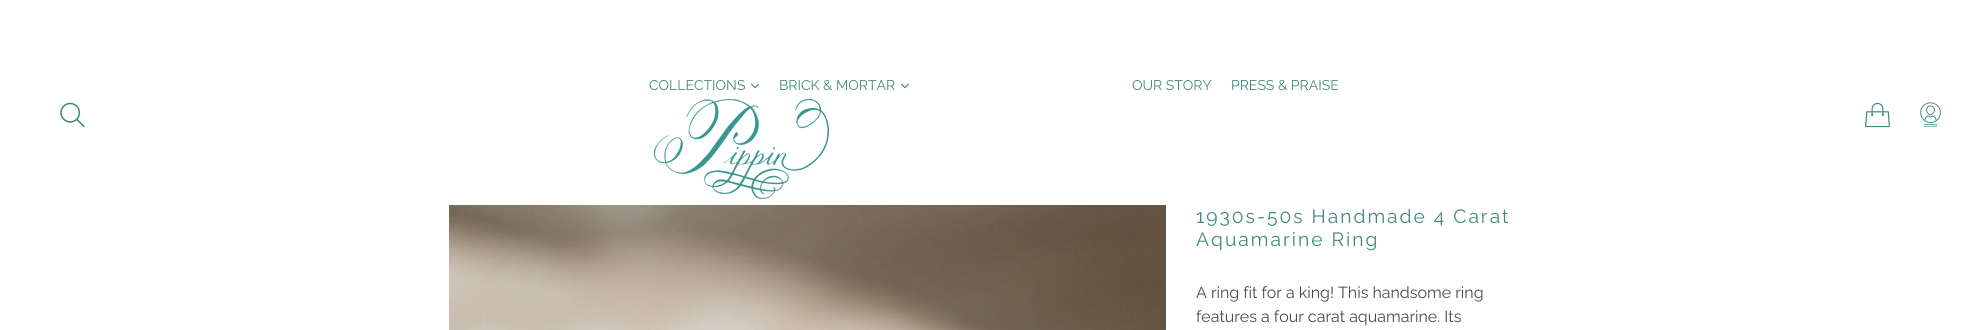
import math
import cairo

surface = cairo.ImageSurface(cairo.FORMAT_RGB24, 1988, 330)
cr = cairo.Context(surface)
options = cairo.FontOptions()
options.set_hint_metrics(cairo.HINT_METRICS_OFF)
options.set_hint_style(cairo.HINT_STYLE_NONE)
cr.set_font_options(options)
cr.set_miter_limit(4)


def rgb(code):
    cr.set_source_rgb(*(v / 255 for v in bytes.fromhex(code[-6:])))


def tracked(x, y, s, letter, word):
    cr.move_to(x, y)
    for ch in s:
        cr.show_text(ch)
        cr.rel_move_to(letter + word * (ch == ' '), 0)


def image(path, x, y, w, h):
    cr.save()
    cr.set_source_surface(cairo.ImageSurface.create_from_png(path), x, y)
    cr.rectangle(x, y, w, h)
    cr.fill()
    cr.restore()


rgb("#ffffff")
cr.paint()
image("img/1.png", 751, 83, 8, 6)
image("img/1.png", 901, 83, 8, 6)
image("img/2.png", 654, 99, 175, 100)
image("img/3.png", 60, 102, 25, 26)
image("img/4.png", 1865, 102, 25, 26)
image("img/5.png", 1920, 102, 21, 25)
image("img/6.png", 449, 205, 717, 125)
cr.select_font_face("Raleway")
cr.set_font_size(14)
rgb("#448a7c")
for x, y, s in [
    (649, 90, "COLLECTIONS"),
    (779, 90, "BRICK & MORTAR"),
    (1132, 90, "OUR STORY"),
    (1231, 90, "PRESS & PRAISE"),
]:
    cr.move_to(x, y)
    cr.show_text(s)
cr.set_font_size(19.25)
tracked(1196, 223, "1930s-50s Handmade 4 Carat", 2, 0)
tracked(1196, 246, "Aquamarine Ring", 2, 0)
cr.set_font_size(16)
rgb("#4c4a4a")
cr.move_to(1196, 298)
cr.show_text("A ring fit for a king! This handsome ring")
cr.move_to(1196, 322)
cr.show_text("features a four carat aquamarine. Its")
surface.write_to_png("page.png")
